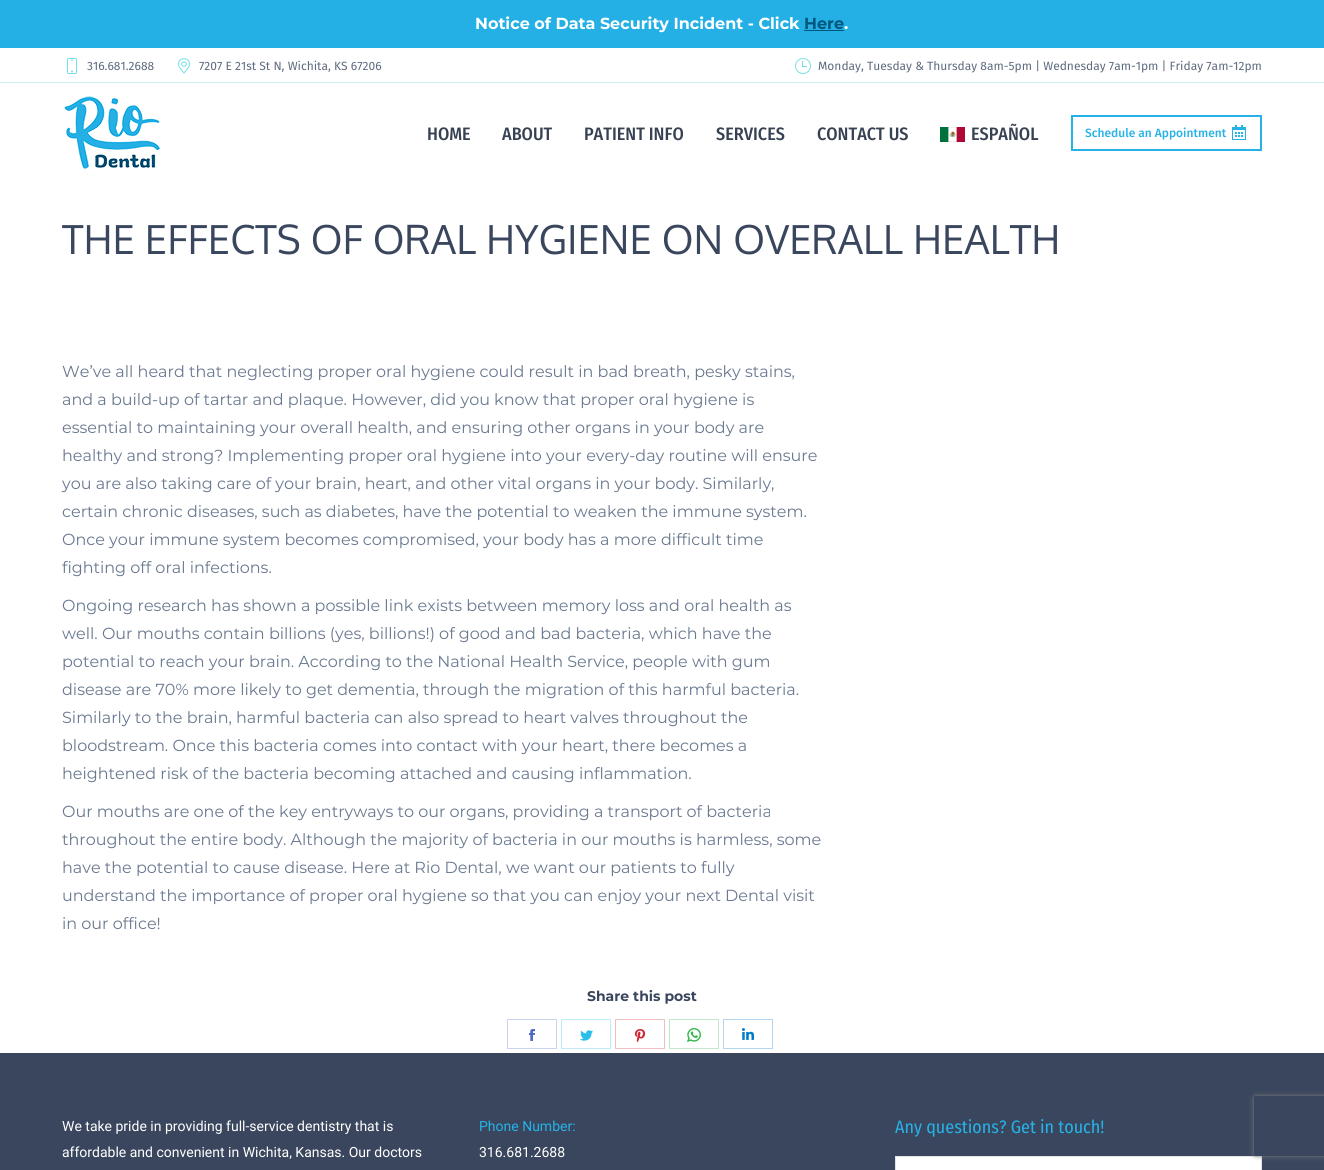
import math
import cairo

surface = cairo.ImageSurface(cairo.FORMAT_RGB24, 1324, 1170)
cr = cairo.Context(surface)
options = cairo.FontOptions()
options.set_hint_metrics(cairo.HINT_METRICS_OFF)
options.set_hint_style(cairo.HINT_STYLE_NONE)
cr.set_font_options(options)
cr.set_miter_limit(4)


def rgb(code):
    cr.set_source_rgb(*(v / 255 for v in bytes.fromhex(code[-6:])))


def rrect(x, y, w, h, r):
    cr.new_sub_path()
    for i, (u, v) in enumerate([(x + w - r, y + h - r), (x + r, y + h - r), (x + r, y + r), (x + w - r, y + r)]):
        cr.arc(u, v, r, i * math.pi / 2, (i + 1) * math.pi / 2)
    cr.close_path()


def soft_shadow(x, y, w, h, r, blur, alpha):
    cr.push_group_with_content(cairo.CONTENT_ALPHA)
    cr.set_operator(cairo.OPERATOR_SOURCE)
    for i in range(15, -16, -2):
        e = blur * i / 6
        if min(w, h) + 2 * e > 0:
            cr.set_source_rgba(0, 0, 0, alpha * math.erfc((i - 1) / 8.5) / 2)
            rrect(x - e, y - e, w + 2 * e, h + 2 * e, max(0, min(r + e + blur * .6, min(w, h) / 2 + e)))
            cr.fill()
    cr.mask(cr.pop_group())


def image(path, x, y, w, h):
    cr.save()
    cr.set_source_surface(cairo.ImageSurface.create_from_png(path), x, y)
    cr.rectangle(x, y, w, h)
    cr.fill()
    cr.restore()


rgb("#ffffff")
cr.paint()
rgb("#24b0e5")
cr.rectangle(0, 0, 1324, 48)
cr.fill()
rgb("#00567b")
cr.rectangle(804, 30, 40, 1)
cr.fill()
image("img/1.png", 67, 58, 10, 16)
image("img/2.png", 178, 58, 12, 16)
image("img/3.png", 795, 58, 16, 16)
rgb("#cdf3f7")
cr.rectangle(0, 82, 1324, 1)
cr.fill()
image("img/4.png", 64, 96, 96, 73)
image("img/5.png", 940, 127, 25, 15)
cr.rectangle(1072, 116, 189, 34)
rgb("#27b2e7")
cr.stroke()
image("img/6.png", 1232, 125, 14, 15)
cr.rectangle(507.5, 1019.5, 49, 29)
rgb("#c9d2ee")
cr.set_line_width(1)
cr.stroke()
image("img/7.png", 529, 1029, 6, 12)
cr.rectangle(561.5, 1019.5, 49, 29)
rgb("#bfecf9")
cr.stroke()
image("img/8.png", 580, 1030, 13, 11)
cr.rectangle(615.5, 1019.5, 49, 29)
rgb("#f1bfc2")
cr.stroke()
image("img/9.png", 634, 1029, 12, 13)
cr.rectangle(669.5, 1019.5, 49, 29)
rgb("#c3e9ca")
cr.stroke()
image("img/10.png", 687, 1028, 14, 14)
cr.rectangle(723.5, 1019.5, 49, 29)
rgb("#b3d7ee")
cr.stroke()
image("img/11.png", 742, 1028, 12, 12)
rgb("#39465d")
cr.rectangle(0, 1053, 1324, 117)
cr.fill()
rgb("#ffffff")
cr.rectangle(895.5, 1156.5, 366, 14)
cr.fill_preserve()
rgb("#e1e3e7")
cr.stroke()
cr.save()
cr.set_fill_rule(cairo.FILL_RULE_EVEN_ODD)
cr.new_path()
cr.move_to(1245, 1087)
cr.line_to(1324, 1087)
cr.line_to(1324, 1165)
cr.line_to(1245, 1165)
cr.close_path()
cr.move_to(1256, 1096)
cr.line_to(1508, 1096)
cr.curve_to(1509, 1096, 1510, 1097, 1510, 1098)
cr.line_to(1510, 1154)
cr.curve_to(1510, 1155, 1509, 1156, 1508, 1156)
cr.line_to(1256, 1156)
cr.curve_to(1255, 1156, 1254, 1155, 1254, 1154)
cr.line_to(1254, 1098)
cr.curve_to(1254, 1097, 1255, 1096, 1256, 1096)
cr.close_path()
cr.clip()
rgb("#808080")
soft_shadow(1254, 1096, 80, 60, 2, 2.5, 1)
cr.restore()
cr.select_font_face("Montserrat", cairo.FONT_SLANT_NORMAL, cairo.FONT_WEIGHT_BOLD)
cr.set_font_size(16)
rgb("#ffffff")
cr.move_to(475, 29)
cr.show_text("Notice of Data Security Incident - Click")
rgb("#00567b")
cr.move_to(804, 29)
cr.show_text("Here")
rgb("#ffffff")
cr.move_to(844, 29)
cr.show_text(".")
cr.select_font_face("Fira Sans")
cr.set_font_size(12)
rgb("#5e6b7f")
for x, y, s in [
    (87, 70, "316.681.2688"),
    (199, 70, "7207 E 21st St N, Wichita, KS 67206"),
    (818, 70, "Monday, Tuesday & Thursday 8am-5pm | Wednesday 7am-1pm | Friday 7am-12pm"),
]:
    cr.move_to(x, y)
    cr.show_text(s)
cr.select_font_face("Fira Sans Condensed Medium")
cr.set_font_size(18)
rgb("#364152")
for x, y, s in [
    (427, 140, "HOME"),
    (502, 140, "ABOUT"),
    (584, 140, "PATIENT INFO"),
    (716, 140, "SERVICES"),
    (817, 140, "CONTACT US"),
    (971, 140, "ESPAÑOL"),
]:
    cr.move_to(x, y)
    cr.show_text(s)
cr.select_font_face("Fira Sans Medium")
cr.set_font_size(12)
rgb("#27b2e7")
cr.move_to(1085, 137)
cr.show_text("Schedule an Appointment")
cr.select_font_face("Oxygen")
cr.set_font_size(40)
rgb("#39465d")
cr.move_to(62, 254)
cr.show_text("THE EFFECTS OF ORAL HYGIENE ON OVERALL HEALTH")
cr.select_font_face("Montserrat")
cr.set_font_size(16)
rgb("#6a7990")
for x, y, s in [
    (62, 377, "We’ve all heard that neglecting proper oral hygiene could result in bad breath, pesky stains,"),
    (62, 405, "and a build-up of tartar and plaque. However, did you know that proper oral hygiene is"),
    (62, 433, "essential to maintaining your overall health, and ensuring other organs in your body are"),
    (62, 461, "healthy and strong? Implementing proper oral hygiene into your every-day routine will ensure"),
    (62, 489, "you are also taking care of your brain, heart, and other vital organs in your body. Similarly,"),
    (62, 517, "certain chronic diseases, such as diabetes, have the potential to weaken the immune system."),
    (62, 545, "Once your immune system becomes compromised, your body has a more difficult time"),
    (62, 573, "fighting off oral infections."),
    (62, 611, "Ongoing research has shown a possible link exists between memory loss and oral health as"),
    (62, 639, "well. Our mouths contain billions (yes, billions!) of good and bad bacteria, which have the"),
    (62, 667, "potential to reach your brain. According to the National Health Service, people with gum"),
    (62, 695, "disease are 70% more likely to get dementia, through the migration of this harmful bacteria."),
    (62, 723, "Similarly to the brain, harmful bacteria can also spread to heart valves throughout the"),
    (62, 751, "bloodstream. Once this bacteria comes into contact with your heart, there becomes a"),
    (62, 779, "heightened risk of the bacteria becoming attached and causing inflammation."),
    (62, 817, "Our mouths are one of the key entryways to our organs, providing a transport of bacteria"),
    (62, 845, "throughout the entire body. Although the majority of bacteria in our mouths is harmless, some"),
    (62, 873, "have the potential to cause disease. Here at Rio Dental, we want our patients to fully"),
    (62, 901, "understand the importance of proper oral hygiene so that you can enjoy your next Dental visit"),
    (62, 929, "in our office!"),
]:
    cr.move_to(x, y)
    cr.show_text(s)
cr.select_font_face("Montserrat", cairo.FONT_SLANT_NORMAL, cairo.FONT_WEIGHT_BOLD)
cr.set_font_size(14)
rgb("#39465d")
cr.move_to(587, 1001)
cr.show_text("Share this post")
cr.select_font_face("Roboto")
rgb("#ffffff")
cr.move_to(62, 1131)
cr.show_text("We take pride in providing full-service dentistry that is")
cr.move_to(62, 1157)
cr.show_text("affordable and convenient in Wichita, Kansas. Our doctors")
rgb("#27b2e7")
cr.move_to(479, 1131)
cr.show_text("Phone Number:")
rgb("#ffffff")
cr.move_to(479, 1157)
cr.show_text("316.681.2688")
cr.select_font_face("Fira Sans Condensed")
cr.set_font_size(18)
rgb("#27b2e7")
cr.move_to(895, 1133)
cr.show_text("Any questions? Get in touch!")
surface.write_to_png("page.png")
